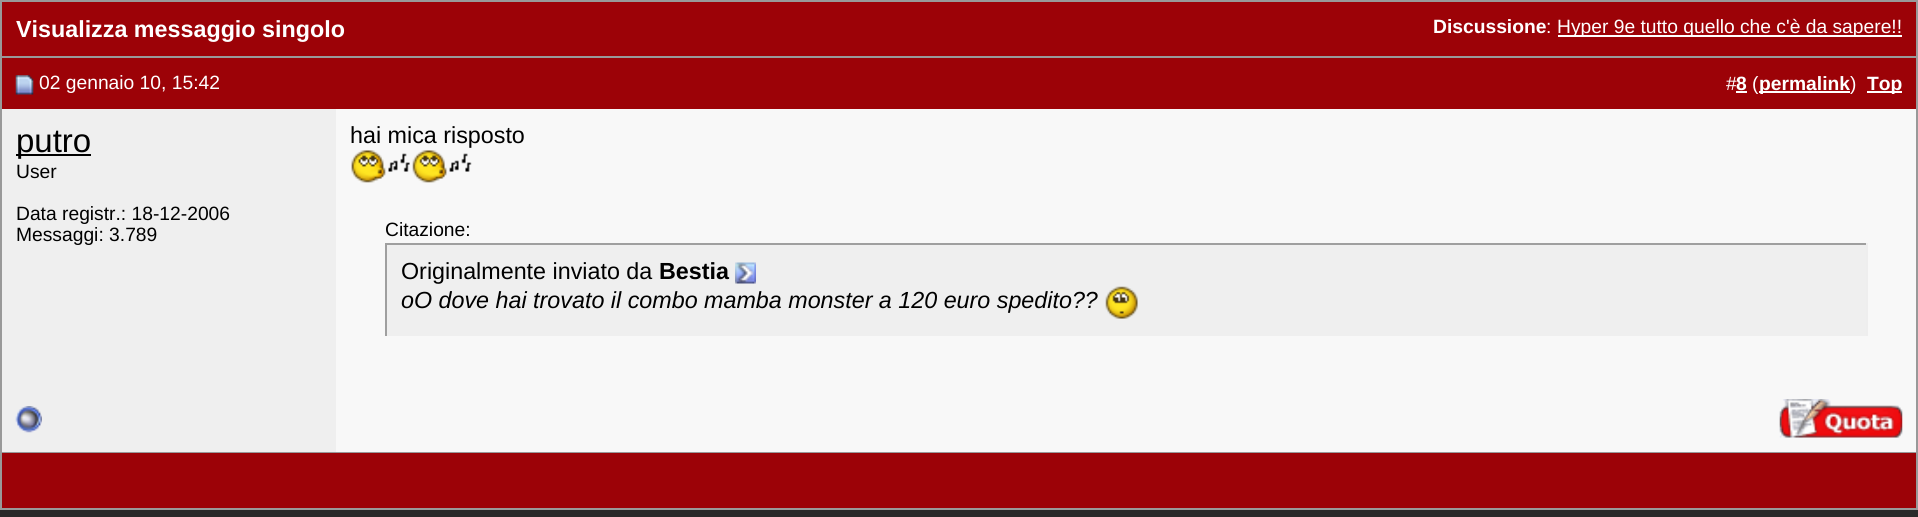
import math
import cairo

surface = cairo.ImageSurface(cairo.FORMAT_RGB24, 1918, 517)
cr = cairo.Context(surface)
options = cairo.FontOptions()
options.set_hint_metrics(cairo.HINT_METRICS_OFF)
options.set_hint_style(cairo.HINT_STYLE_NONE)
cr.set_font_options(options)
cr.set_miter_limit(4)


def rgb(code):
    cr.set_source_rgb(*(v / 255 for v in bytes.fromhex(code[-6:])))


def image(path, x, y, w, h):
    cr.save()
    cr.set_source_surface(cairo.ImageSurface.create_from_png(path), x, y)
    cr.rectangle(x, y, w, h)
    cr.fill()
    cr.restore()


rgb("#292929")
cr.paint()
for x, y, w, h, color in [
    (0, 0, 1918, 2, "#999999"),
    (1916, 0, 2, 56, "#999999"),
    (0, 0, 2, 56, "#999999"),
    (2, 2, 1914, 54, "#9c0207"),
    (1558, 35, 344, 2, "#ffffff"),
]:
    rgb(color)
    cr.rectangle(x, y, w, h)
    cr.fill()
cr.rectangle(1, 57, 1916, 395)
rgb("#999999")
cr.stroke()
rgb("#9c0207")
cr.rectangle(2, 58, 1914, 51)
cr.fill()
image("img/1.png", 15, 75, 19, 20)
for x, y, w, h, color in [
    (1736, 91, 11, 2, "#ffffff"),
    (1759, 91, 91, 2, "#ffffff"),
    (1867, 91, 35, 2, "#ffffff"),
    (2, 109, 334, 343, "#efefef"),
    (16, 154, 75, 2, "#000000"),
    (336, 109, 1580, 343, "#f8f8f8"),
]:
    rgb(color)
    cr.rectangle(x, y, w, h)
    cr.fill()
image("img/2.png", 351, 150, 59, 33)
image("img/3.png", 412, 150, 60, 33)
for x, y, w, h, color in [
    (387, 245, 1479, 91, "#efefef"),
    (385, 243, 1482, 2, "#9f9f9f"),
    (1866, 243, 2, 93, "#eeeeee"),
    (385, 243, 2, 93, "#9f9f9f"),
]:
    rgb(color)
    cr.rectangle(x, y, w, h)
    cr.fill()
image("img/4.png", 735, 262, 21, 22)
image("img/5.png", 1105, 286, 33, 33)
image("img/6.png", 15, 406, 27, 27)
image("img/7.png", 1779, 399, 124, 39)
for x, y, w, h, color in [
    (1916, 453, 2, 56, "#999999"),
    (0, 508, 1918, 2, "#999999"),
    (0, 453, 2, 56, "#999999"),
    (2, 453, 1914, 55, "#9c0207"),
]:
    rgb(color)
    cr.rectangle(x, y, w, h)
    cr.fill()
cr.select_font_face("Liberation Sans", cairo.FONT_SLANT_NORMAL, cairo.FONT_WEIGHT_BOLD)
cr.set_font_size(23.3)
rgb("#ffffff")
cr.move_to(16, 37)
cr.show_text("Visualizza messaggio singolo")
cr.set_font_size(19.25)
cr.move_to(1433, 33)
cr.show_text("Discussione")
cr.select_font_face("Liberation Sans")
for x, y, s in [
    (1546, 33, ":"),
    (1557, 33, "Hyper 9e tutto quello che c'è da sapere!!"),
    (39, 89, "02 gennaio 10, 15:42"),
    (1726, 90, "#"),
]:
    cr.move_to(x, y)
    cr.show_text(s)
cr.select_font_face("Liberation Sans", cairo.FONT_SLANT_NORMAL, cairo.FONT_WEIGHT_BOLD)
cr.move_to(1736, 90)
cr.show_text("8")
cr.select_font_face("Liberation Sans")
cr.move_to(1752, 90)
cr.show_text("(")
cr.select_font_face("Liberation Sans", cairo.FONT_SLANT_NORMAL, cairo.FONT_WEIGHT_BOLD)
cr.move_to(1759, 90)
cr.show_text("permalink")
cr.select_font_face("Liberation Sans")
cr.move_to(1850, 90)
cr.show_text(")")
cr.select_font_face("Liberation Sans", cairo.FONT_SLANT_NORMAL, cairo.FONT_WEIGHT_BOLD)
cr.move_to(1867, 90)
cr.show_text("Top")
cr.select_font_face("Liberation Sans")
cr.set_font_size(33)
rgb("#000000")
cr.move_to(16, 152)
cr.show_text("putro")
cr.set_font_size(19.25)
for x, y, s in [
    (16, 178, "User"),
    (16, 220, "Data registr.: 18-12-2006"),
    (16, 241, "Messaggi: 3.789"),
]:
    cr.move_to(x, y)
    cr.show_text(s)
cr.set_font_size(23.3)
cr.move_to(350, 143)
cr.show_text("hai mica risposto")
cr.set_font_size(19.25)
cr.move_to(385, 236)
cr.show_text("Citazione:")
cr.set_font_size(23.3)
cr.move_to(401, 279)
cr.show_text("Originalmente inviato da")
cr.select_font_face("Liberation Sans", cairo.FONT_SLANT_NORMAL, cairo.FONT_WEIGHT_BOLD)
cr.move_to(659, 279)
cr.show_text("Bestia")
cr.select_font_face("Liberation Sans", cairo.FONT_SLANT_ITALIC)
cr.move_to(401, 308)
cr.show_text("oO dove hai trovato il combo mamba monster a 120 euro spedito??")
surface.write_to_png("page.png")
